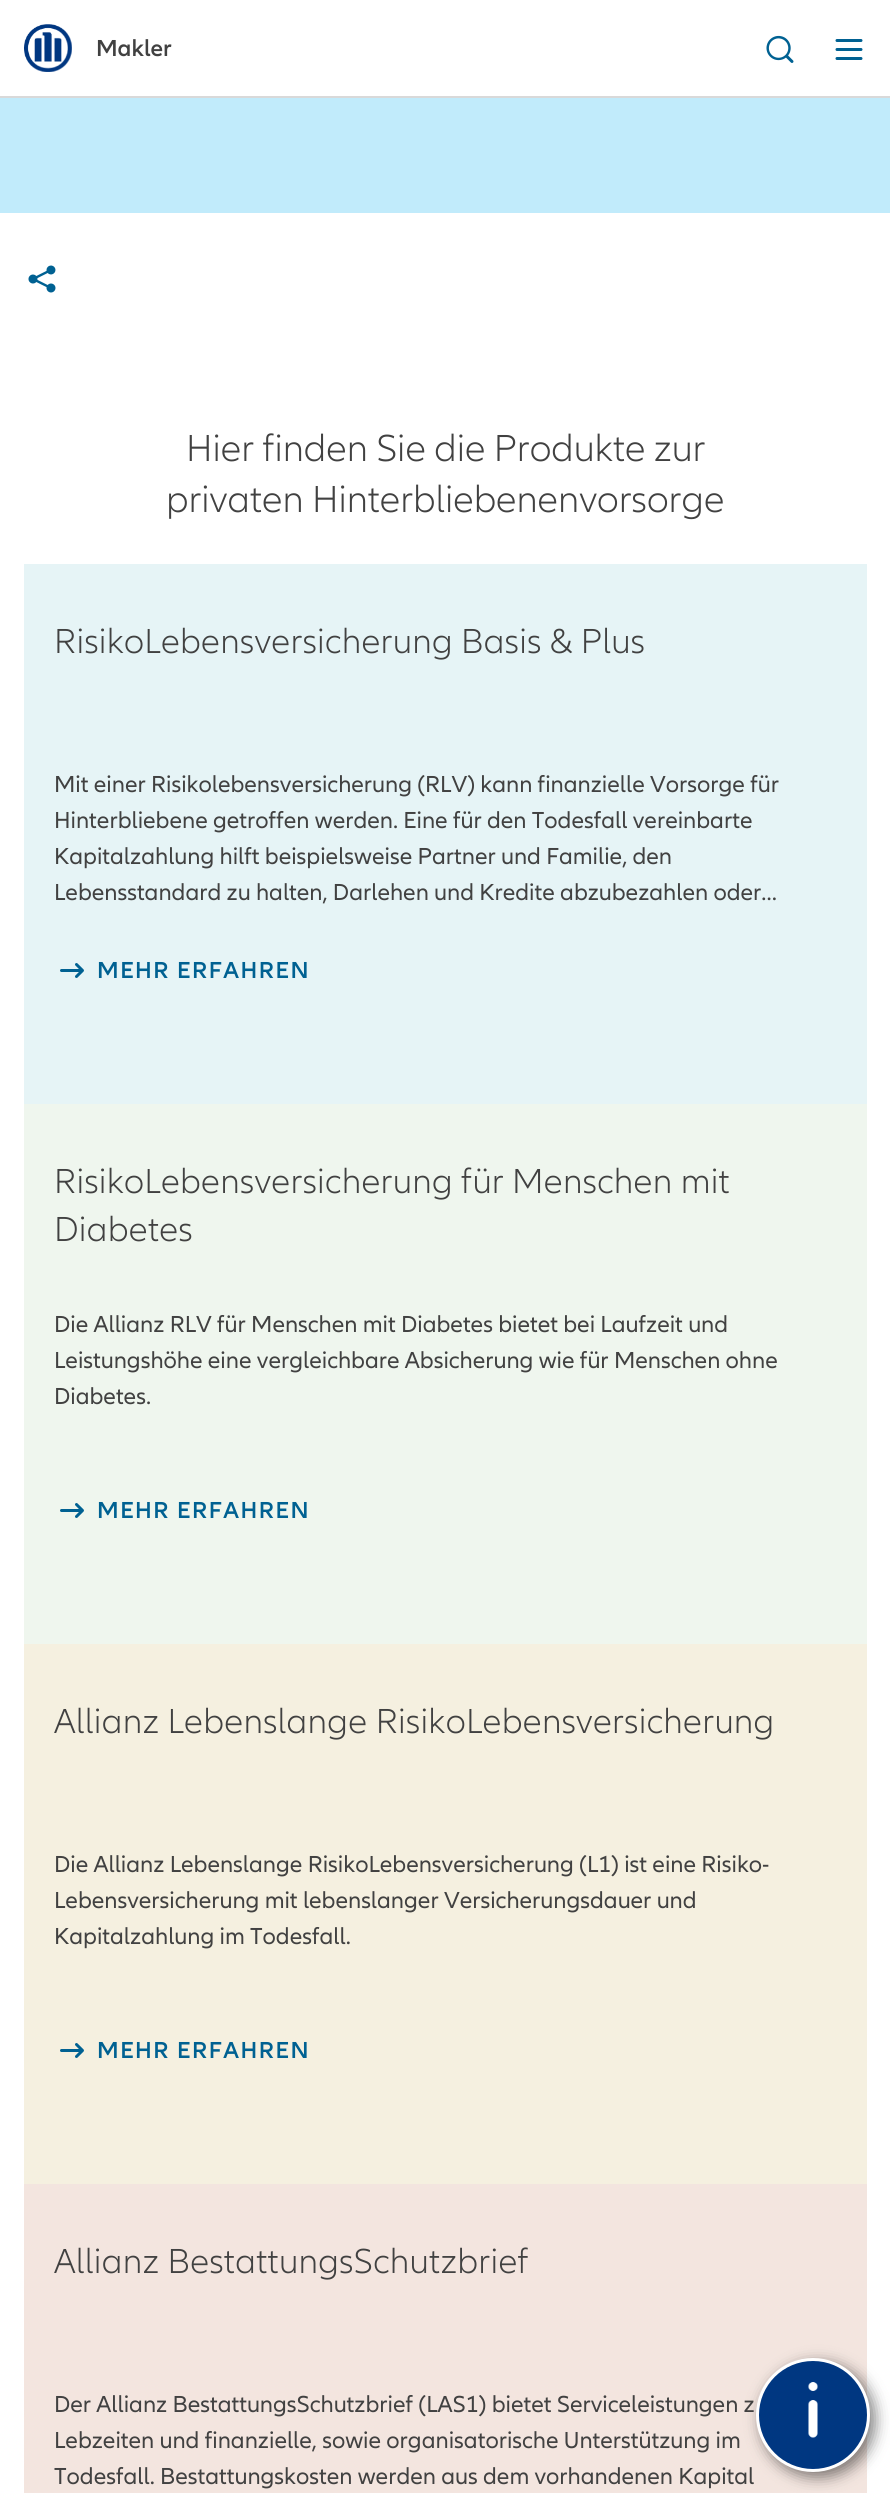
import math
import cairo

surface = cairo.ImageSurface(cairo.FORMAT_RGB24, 890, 2493)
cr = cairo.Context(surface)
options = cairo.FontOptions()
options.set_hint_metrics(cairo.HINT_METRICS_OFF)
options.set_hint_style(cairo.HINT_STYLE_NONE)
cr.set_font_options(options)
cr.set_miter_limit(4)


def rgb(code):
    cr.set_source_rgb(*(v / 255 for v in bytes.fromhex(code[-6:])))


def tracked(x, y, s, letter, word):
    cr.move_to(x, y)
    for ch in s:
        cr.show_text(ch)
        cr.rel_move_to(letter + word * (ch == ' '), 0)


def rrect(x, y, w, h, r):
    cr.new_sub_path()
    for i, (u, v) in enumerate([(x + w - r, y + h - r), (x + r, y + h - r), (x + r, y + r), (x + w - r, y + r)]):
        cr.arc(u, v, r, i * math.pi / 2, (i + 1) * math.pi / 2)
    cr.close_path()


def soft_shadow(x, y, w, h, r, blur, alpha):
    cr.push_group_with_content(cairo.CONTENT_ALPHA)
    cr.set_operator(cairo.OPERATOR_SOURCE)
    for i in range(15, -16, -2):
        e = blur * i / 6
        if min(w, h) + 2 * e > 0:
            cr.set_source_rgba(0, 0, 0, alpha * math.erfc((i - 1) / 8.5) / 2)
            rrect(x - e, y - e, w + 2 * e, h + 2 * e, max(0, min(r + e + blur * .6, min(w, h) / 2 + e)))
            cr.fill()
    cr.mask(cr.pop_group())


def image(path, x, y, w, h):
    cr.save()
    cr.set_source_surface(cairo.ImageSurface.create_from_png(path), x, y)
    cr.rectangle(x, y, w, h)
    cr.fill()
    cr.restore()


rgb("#ffffff")
cr.paint()
rgb("#d9d9d9")
cr.rectangle(0, 96, 890, 2)
cr.fill()
image("img/1.png", 24, 24, 48, 48)
image("img/2.png", 766, 35, 28, 28)
image("img/3.png", 835, 39, 28, 21)
rgb("#c1ebfb")
cr.rectangle(0, 98, 890, 115)
cr.fill()
image("img/4.png", 28, 265, 28, 28)
rgb("#e6f4f6")
cr.rectangle(24, 564, 843, 540)
cr.fill()
image("img/5.png", 60, 963, 24, 15)
rgb("#eff6ee")
cr.rectangle(24, 1104, 843, 540)
cr.fill()
image("img/6.png", 60, 1503, 24, 15)
rgb("#f5f0e0")
cr.rectangle(24, 1644, 843, 540)
cr.fill()
image("img/7.png", 60, 2043, 24, 15)
rgb("#f3e5df")
cr.rectangle(24, 2184, 843, 309)
cr.fill()
rgb("#000000")
soft_shadow(761, 2363, 114, 114, 57, 7.5, 0.5)
rgb("#003781")
cr.arc(813, 2415, 55.5, 0, 2 * math.pi)
cr.fill_preserve()
rgb("#ffffff")
cr.set_line_width(3)
cr.stroke()
image("img/8.png", 808, 2382, 10, 56)
cr.select_font_face("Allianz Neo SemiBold")
cr.set_font_size(24)
rgb("#414141")
cr.move_to(96, 56)
cr.show_text("Makler")
cr.select_font_face("Allianz Neo Light")
cr.set_font_size(39)
cr.move_to(186, 461)
cr.show_text("Hier finden Sie die Produkte zur")
cr.move_to(166, 512)
cr.show_text("privaten Hinterbliebenenvorsorge")
cr.set_font_size(36)
tracked(54, 653, "RisikoLebensversicherung Basis & Plus", 0.3, 0)
cr.select_font_face("Allianz Neo")
cr.set_font_size(24)
for x, y, s in [
    (54, 792, "Mit einer Risikolebensversicherung (RLV) kann finanzielle Vorsorge für"),
    (54, 828, "Hinterbliebene getroffen werden. Eine für den Todesfall vereinbarte"),
    (54, 864, "Kapitalzahlung hilft beispielsweise Partner und Familie, den"),
    (54, 900, "Lebensstandard zu halten, Darlehen und Kredite abzubezahlen oder…"),
]:
    cr.move_to(x, y)
    cr.show_text(s)
cr.select_font_face("Allianz Neo SemiBold")
rgb("#006192")
tracked(97, 978, "MEHR ERFAHREN", 1.5, 0)
cr.select_font_face("Allianz Neo Light")
cr.set_font_size(36)
rgb("#414141")
tracked(54, 1193, "RisikoLebensversicherung für Menschen mit", 0.3, 0)
tracked(54, 1241, "Diabetes", 0.3, 0)
cr.select_font_face("Allianz Neo")
cr.set_font_size(24)
for x, y, s in [
    (54, 1332, "Die Allianz RLV für Menschen mit Diabetes bietet bei Laufzeit und"),
    (54, 1368, "Leistungshöhe eine vergleichbare Absicherung wie für Menschen ohne"),
    (54, 1404, "Diabetes."),
]:
    cr.move_to(x, y)
    cr.show_text(s)
cr.select_font_face("Allianz Neo SemiBold")
rgb("#006192")
tracked(97, 1518, "MEHR ERFAHREN", 1.5, 0)
cr.select_font_face("Allianz Neo Light")
cr.set_font_size(36)
rgb("#414141")
tracked(54, 1733, "Allianz Lebenslange RisikoLebensversicherung", 0.3, 0)
cr.select_font_face("Allianz Neo")
cr.set_font_size(24)
for x, y, s in [
    (54, 1872, "Die Allianz Lebenslange RisikoLebensversicherung (L1) ist eine Risiko-"),
    (54, 1908, "Lebensversicherung mit lebenslanger Versicherungsdauer und"),
    (54, 1944, "Kapitalzahlung im Todesfall."),
]:
    cr.move_to(x, y)
    cr.show_text(s)
cr.select_font_face("Allianz Neo SemiBold")
rgb("#006192")
tracked(97, 2058, "MEHR ERFAHREN", 1.5, 0)
cr.select_font_face("Allianz Neo Light")
cr.set_font_size(36)
rgb("#414141")
tracked(54, 2273, "Allianz BestattungsSchutzbrief", 0.3, 0)
cr.select_font_face("Allianz Neo")
cr.set_font_size(24)
for x, y, s in [
    (54, 2412, "Der Allianz BestattungsSchutzbrief (LAS1) bietet Serviceleistungen z"),
    (54, 2448, "Lebzeiten und finanzielle, sowie organisatorische Unterstützung im"),
    (54, 2484, "Todesfall. Bestattungskosten werden aus dem vorhandenen Kapital"),
]:
    cr.move_to(x, y)
    cr.show_text(s)
surface.write_to_png("page.png")
